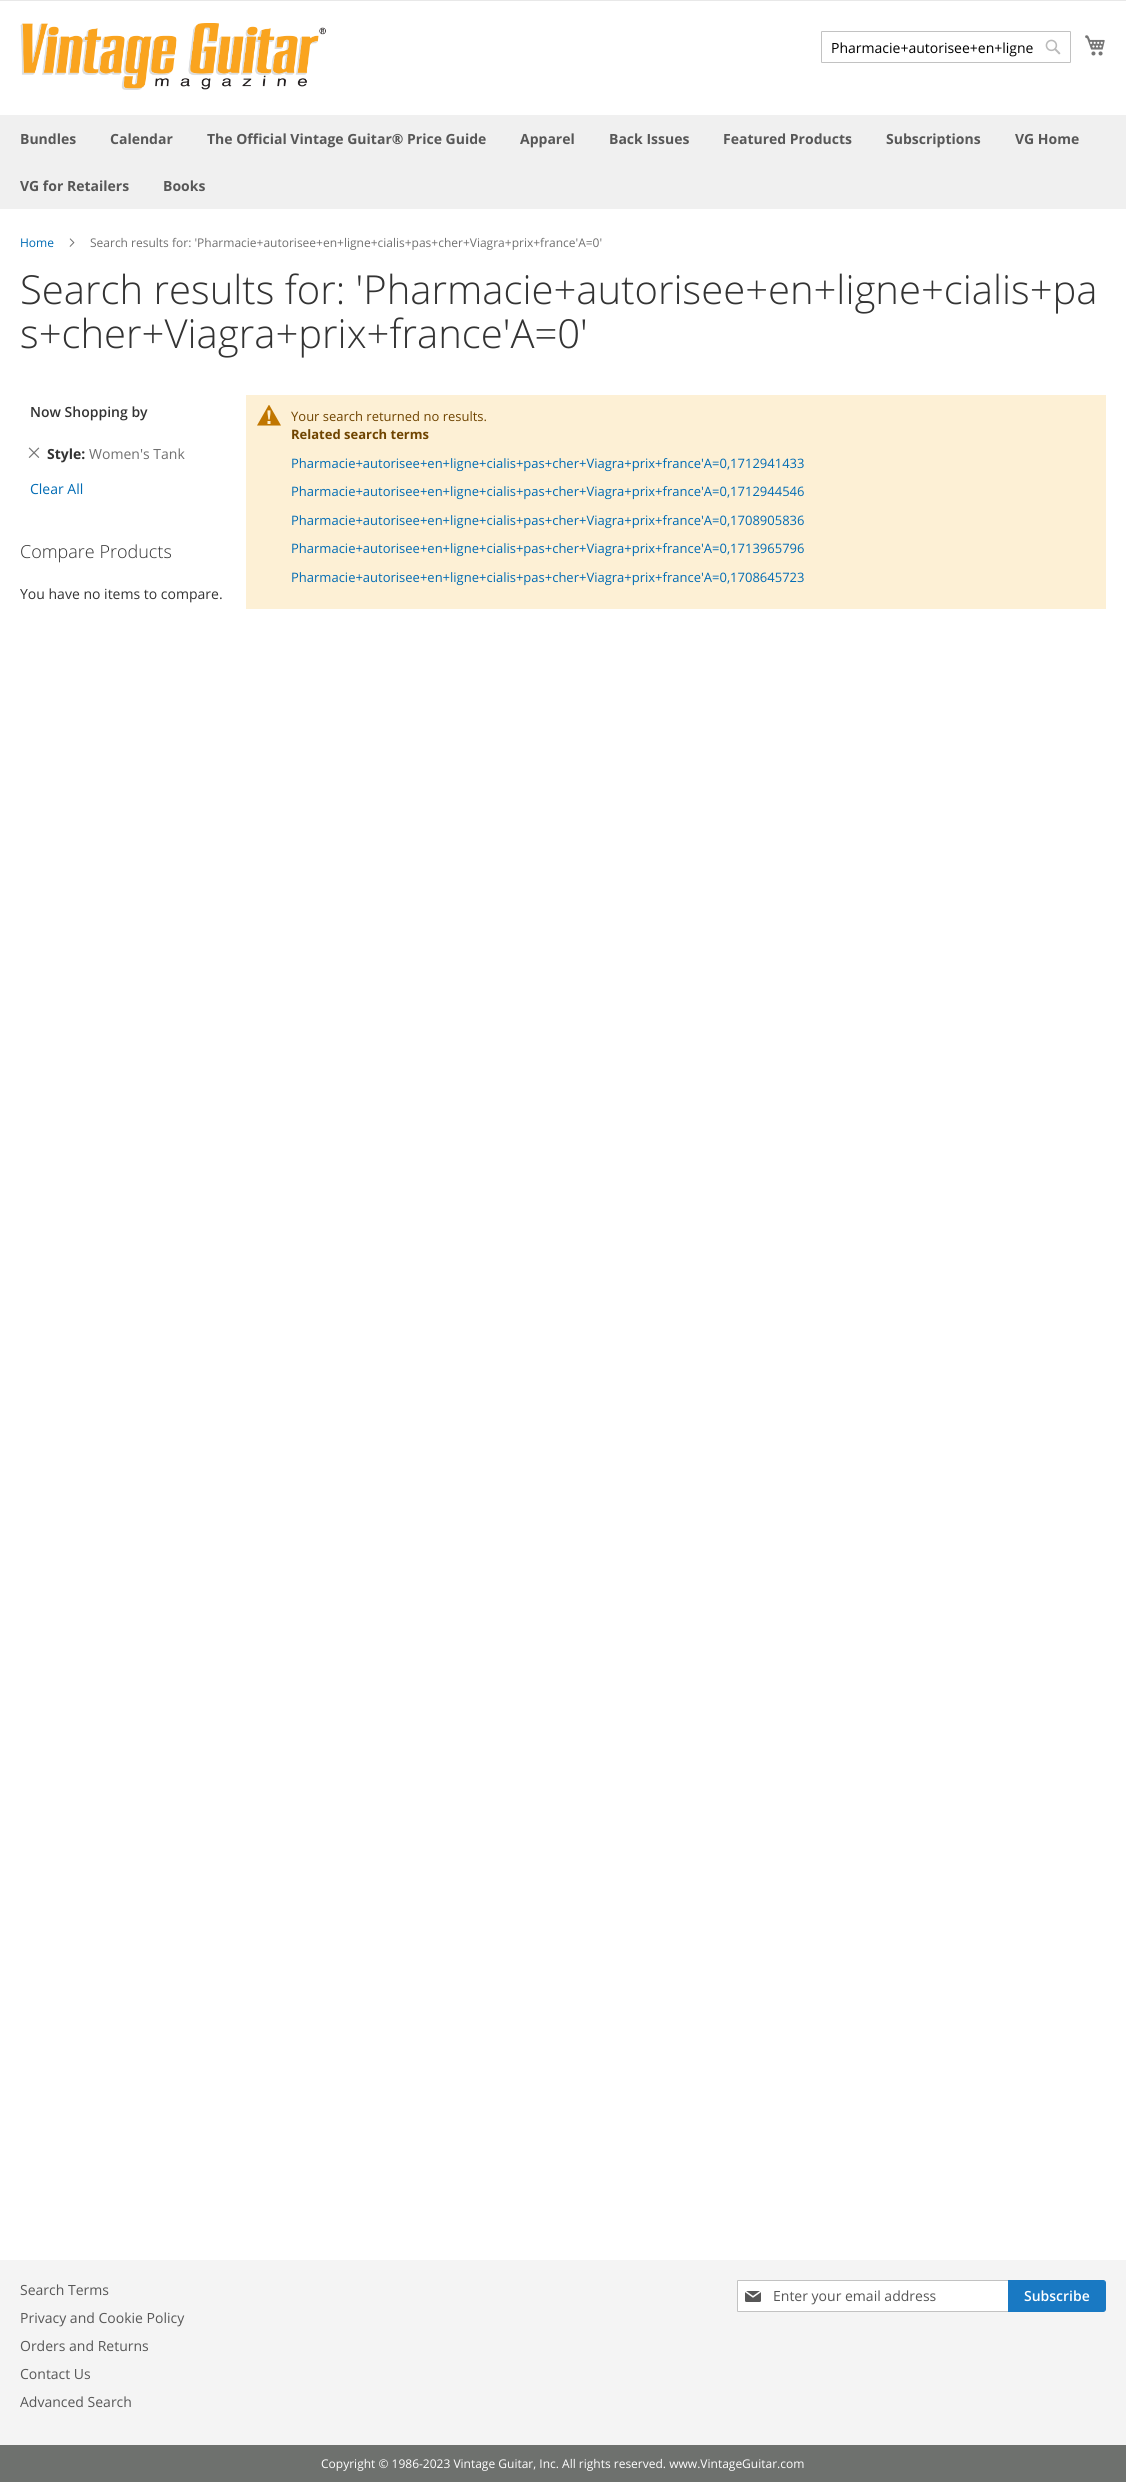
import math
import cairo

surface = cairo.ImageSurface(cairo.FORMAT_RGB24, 1126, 2482)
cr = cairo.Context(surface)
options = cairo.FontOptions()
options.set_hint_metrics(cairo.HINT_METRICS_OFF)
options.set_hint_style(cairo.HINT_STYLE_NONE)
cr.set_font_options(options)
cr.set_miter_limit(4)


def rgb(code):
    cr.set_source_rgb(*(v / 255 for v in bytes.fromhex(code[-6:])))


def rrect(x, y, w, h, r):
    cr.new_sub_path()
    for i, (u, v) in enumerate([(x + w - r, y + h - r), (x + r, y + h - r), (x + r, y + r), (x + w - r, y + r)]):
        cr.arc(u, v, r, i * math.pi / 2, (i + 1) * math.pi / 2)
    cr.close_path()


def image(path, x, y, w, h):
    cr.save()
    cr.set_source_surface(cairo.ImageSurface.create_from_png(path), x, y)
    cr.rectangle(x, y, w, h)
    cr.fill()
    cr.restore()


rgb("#ffffff")
cr.paint()
rgb("#e8e8e8")
cr.rectangle(0, 0, 1126, 1)
cr.fill()
image("img/1.png", 20, 23, 306, 67)
rrect(821.5, 31.5, 249, 31, 0.5)
rgb("#c2c2c2")
cr.set_line_width(1)
cr.stroke()
image("img/2.png", 1045, 39, 16, 16)
image("img/3.png", 1085, 35, 20, 21)
rgb("#f0f0f0")
cr.rectangle(0, 115, 1126, 94)
cr.fill()
image("img/4.png", 69, 238, 6, 9)
image("img/5.png", 28, 447, 12, 11)
rgb("#fdf0d5")
cr.rectangle(246, 395, 860, 214)
cr.fill()
image("img/6.png", 257, 405, 24, 21)
rgb("#f4f4f4")
cr.rectangle(0, 2260, 1126, 185)
cr.fill()
rgb("#ffffff")
rrect(737.5, 2280.5, 271, 31, 0.5)
cr.fill_preserve()
rgb("#c2c2c2")
cr.stroke()
image("img/7.png", 745, 2291, 16, 11)
rgb("#1979c3")
cr.new_path()
cr.move_to(1008.5, 2280.5)
cr.line_to(1103, 2280.5)
cr.curve_to(1104.5, 2280.5, 1105.5, 2281.5, 1105.5, 2283)
cr.line_to(1105.5, 2309)
cr.curve_to(1105.5, 2310.5, 1104.5, 2311.5, 1103, 2311.5)
cr.line_to(1008.5, 2311.5)
cr.close_path()
cr.fill_preserve()
cr.stroke()
rgb("#6e716e")
cr.rectangle(0, 2445, 1126, 37)
cr.fill()
cr.select_font_face("Open Sans")
cr.set_font_size(14)
rgb("#000000")
cr.move_to(831, 53)
cr.show_text("Pharmacie+autorisee+en+ligne")
cr.select_font_face("Open Sans", cairo.FONT_SLANT_NORMAL, cairo.FONT_WEIGHT_BOLD)
rgb("#575757")
for x, y, s in [
    (20, 144, "Bundles"),
    (110, 144, "Calendar"),
    (207, 144, "The Official Vintage Guitar® Price Guide"),
    (520, 144, "Apparel"),
    (609, 144, "Back Issues"),
    (723, 144, "Featured Products"),
    (886, 144, "Subscriptions"),
    (1015, 144, "VG Home"),
    (20, 191, "VG for Retailers"),
    (163, 191, "Books"),
]:
    cr.move_to(x, y)
    cr.show_text(s)
cr.select_font_face("Open Sans")
cr.set_font_size(12)
rgb("#006bb4")
cr.move_to(20, 247)
cr.show_text("Home")
rgb("#707070")
cr.move_to(90, 247)
cr.show_text("Search results for: 'Pharmacie+autorisee+en+ligne+cialis+pas+cher+Viagra+prix+france'A=0'")
cr.select_font_face("Open Sans Light")
cr.set_font_size(40)
rgb("#333333")
cr.move_to(20, 304)
cr.show_text("Search results for: 'Pharmacie+autorisee+en+ligne+cialis+pa")
cr.move_to(20, 348)
cr.show_text("s+cher+Viagra+prix+france'A=0'")
cr.select_font_face("Open Sans SemiBold")
cr.set_font_size(14)
cr.move_to(30, 417)
cr.show_text("Now Shopping by")
cr.select_font_face("Open Sans", cairo.FONT_SLANT_NORMAL, cairo.FONT_WEIGHT_BOLD)
cr.move_to(47, 459)
cr.show_text("Style:")
cr.select_font_face("Open Sans")
rgb("#707070")
cr.move_to(89, 459)
cr.show_text("Women's Tank")
rgb("#006bb4")
cr.move_to(30, 494)
cr.show_text("Clear All")
cr.set_font_size(13)
rgb("#6f4400")
cr.move_to(291, 421)
cr.show_text("Your search returned no results.")
cr.select_font_face("Open Sans", cairo.FONT_SLANT_NORMAL, cairo.FONT_WEIGHT_BOLD)
cr.move_to(291, 439)
cr.show_text("Related search terms")
cr.select_font_face("Open Sans")
rgb("#006bb4")
for x, y, s in [
    (291, 468, "Pharmacie+autorisee+en+ligne+cialis+pas+cher+Viagra+prix+france'A=0,1712941433"),
    (291, 496, "Pharmacie+autorisee+en+ligne+cialis+pas+cher+Viagra+prix+france'A=0,1712944546"),
    (291, 525, "Pharmacie+autorisee+en+ligne+cialis+pas+cher+Viagra+prix+france'A=0,1708905836"),
    (291, 553, "Pharmacie+autorisee+en+ligne+cialis+pas+cher+Viagra+prix+france'A=0,1713965796"),
    (291, 582, "Pharmacie+autorisee+en+ligne+cialis+pas+cher+Viagra+prix+france'A=0,1708645723"),
]:
    cr.move_to(x, y)
    cr.show_text(s)
cr.select_font_face("Open Sans Light")
cr.set_font_size(18)
rgb("#333333")
cr.move_to(20, 558)
cr.show_text("Compare Products")
cr.select_font_face("Open Sans")
cr.set_font_size(14)
cr.move_to(20, 599)
cr.show_text("You have no items to compare.")
rgb("#575757")
for x, y, s in [
    (20, 2295, "Search Terms"),
    (20, 2323, "Privacy and Cookie Policy"),
    (20, 2351, "Orders and Returns"),
    (20, 2379, "Contact Us"),
    (20, 2407, "Advanced Search"),
    (773, 2301, "Enter your email address"),
]:
    cr.move_to(x, y)
    cr.show_text(s)
cr.select_font_face("Open Sans SemiBold")
rgb("#ffffff")
cr.move_to(1024, 2301)
cr.show_text("Subscribe")
cr.select_font_face("Open Sans")
cr.set_font_size(12)
cr.move_to(321, 2468)
cr.show_text("Copyright © 1986-2023 Vintage Guitar, Inc. All rights reserved. www.VintageGuitar.com")
surface.write_to_png("page.png")
